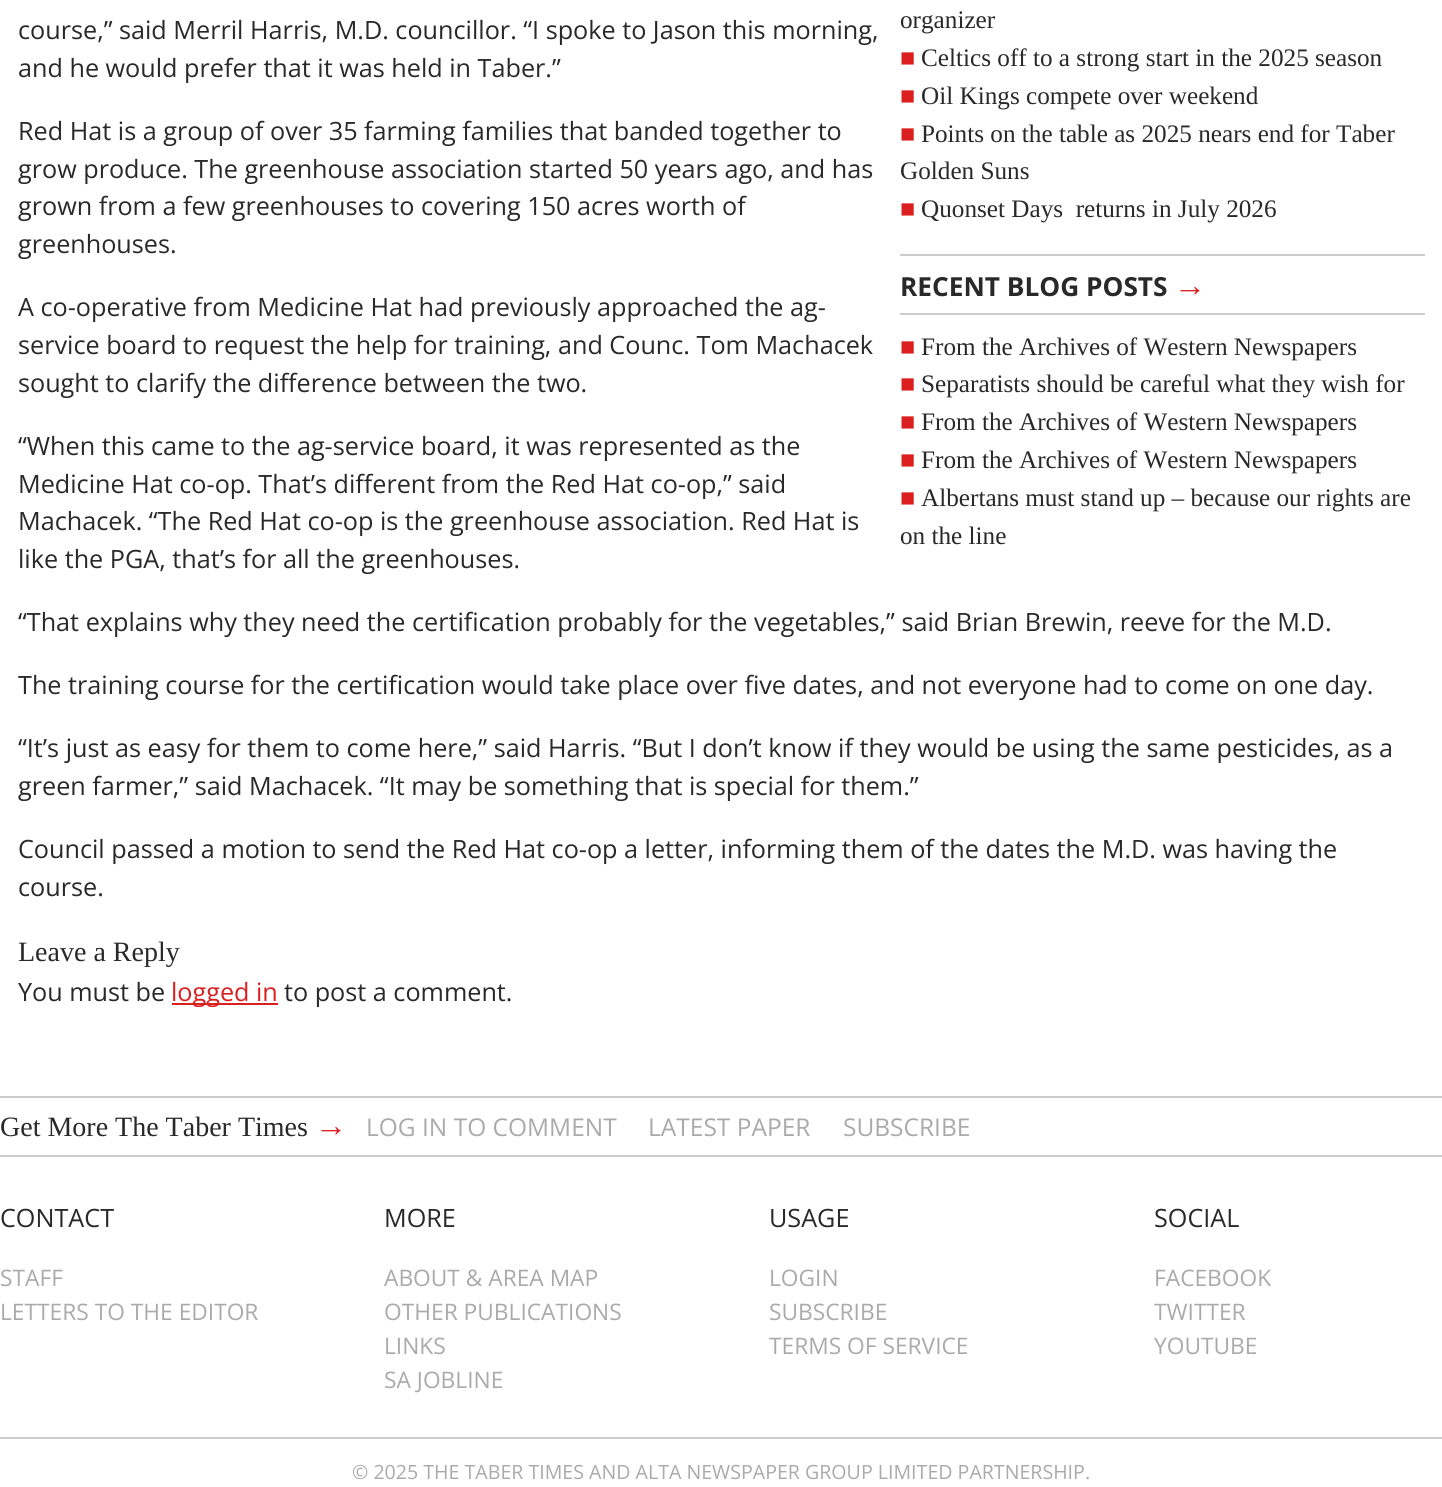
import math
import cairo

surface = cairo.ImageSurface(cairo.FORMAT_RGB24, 1442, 1487)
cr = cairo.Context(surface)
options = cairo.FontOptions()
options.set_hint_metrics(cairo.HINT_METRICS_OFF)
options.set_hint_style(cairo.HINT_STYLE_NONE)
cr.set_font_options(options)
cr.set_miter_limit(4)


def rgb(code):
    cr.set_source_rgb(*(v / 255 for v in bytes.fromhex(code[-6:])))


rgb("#ffffff")
cr.paint()
for x, y, w, h, color in [
    (900, 254, 525, 2, "#cccccc"),
    (900, 313, 525, 2, "#cccccc"),
    (172, 1003, 106, 2, "#db1f1f"),
    (0, 1096, 1442, 2, "#cccccc"),
    (0, 1155, 1442, 2, "#cccccc"),
    (0, 1437, 1442, 2, "#cccccc"),
]:
    rgb(color)
    cr.rectangle(x, y, w, h)
    cr.fill()
cr.select_font_face("Liberation Serif")
cr.set_font_size(25.2)
rgb("#292929")
cr.move_to(900, 28)
cr.show_text("organizer")
rgb("#db1f1f")
cr.move_to(900, 66)
cr.show_text("■")
rgb("#292929")
cr.move_to(921, 66)
cr.show_text("Celtics off to a strong start in the 2025 season")
rgb("#db1f1f")
cr.move_to(900, 104)
cr.show_text("■")
rgb("#292929")
cr.move_to(921, 104)
cr.show_text("Oil Kings compete over weekend")
rgb("#db1f1f")
cr.move_to(900, 142)
cr.show_text("■")
rgb("#292929")
cr.move_to(921, 142)
cr.show_text("Points on the table as 2025 nears end for Taber")
cr.move_to(900, 179)
cr.show_text("Golden Suns")
rgb("#db1f1f")
cr.move_to(900, 217)
cr.show_text("■")
rgb("#292929")
cr.move_to(921, 217)
cr.show_text("Quonset Days  returns in July 2026")
cr.select_font_face("Open Sans", cairo.FONT_SLANT_NORMAL, cairo.FONT_WEIGHT_BOLD)
cr.set_font_size(26.25)
cr.move_to(900, 296)
cr.show_text("RECENT BLOG POSTS")
cr.select_font_face("Liberation Sans", cairo.FONT_SLANT_NORMAL, cairo.FONT_WEIGHT_BOLD)
cr.set_font_size(32)
rgb("#db1f1f")
cr.move_to(1174, 296)
cr.show_text("→")
cr.select_font_face("Liberation Serif")
cr.set_font_size(25.2)
cr.move_to(900, 355)
cr.show_text("■")
rgb("#292929")
cr.move_to(921, 355)
cr.show_text("From the Archives of Western Newspapers")
rgb("#db1f1f")
cr.move_to(900, 392)
cr.show_text("■")
rgb("#292929")
cr.move_to(921, 392)
cr.show_text("Separatists should be careful what they wish for")
rgb("#db1f1f")
cr.move_to(900, 430)
cr.show_text("■")
rgb("#292929")
cr.move_to(921, 430)
cr.show_text("From the Archives of Western Newspapers")
rgb("#db1f1f")
cr.move_to(900, 468)
cr.show_text("■")
rgb("#292929")
cr.move_to(921, 468)
cr.show_text("From the Archives of Western Newspapers")
rgb("#db1f1f")
cr.move_to(900, 506)
cr.show_text("■")
rgb("#292929")
cr.move_to(921, 506)
cr.show_text("Albertans must stand up – because our rights are")
cr.move_to(900, 544)
cr.show_text("on the line")
cr.select_font_face("Open Sans")
for x, y, s in [
    (18, 39, "course,” said Merril Harris, M.D. councillor. “I spoke to Jason this morning,"),
    (18, 77, "and he would prefer that it was held in Taber.”"),
    (18, 140, "Red Hat is a group of over 35 farming families that banded together to"),
    (18, 178, "grow produce. The greenhouse association started 50 years ago, and has"),
    (18, 215, "grown from a few greenhouses to covering 150 acres worth of"),
    (18, 253, "greenhouses."),
    (18, 316, "A co-operative from Medicine Hat had previously approached the ag-"),
    (18, 354, "service board to request the help for training, and Counc. Tom Machacek"),
    (18, 392, "sought to clarify the difference between the two."),
    (18, 455, "“When this came to the ag-service board, it was represented as the"),
    (18, 493, "Medicine Hat co-op. That’s different from the Red Hat co-op,” said"),
    (18, 530, "Machacek. “The Red Hat co-op is the greenhouse association. Red Hat is"),
    (18, 568, "like the PGA, that’s for all the greenhouses."),
    (18, 631, "“That explains why they need the certification probably for the vegetables,” said Brian Brewin, reeve for the M.D."),
    (18, 694, "The training course for the certification would take place over five dates, and not everyone had to come on one day."),
    (18, 757, "“It’s just as easy for them to come here,” said Harris. “But I don’t know if they would be using the same pesticides, as a"),
    (18, 795, "green farmer,” said Machacek. “It may be something that is special for them.”"),
    (18, 858, "Council passed a motion to send the Red Hat co-op a letter, informing them of the dates the M.D. was having the"),
    (18, 896, "course."),
]:
    cr.move_to(x, y)
    cr.show_text(s)
cr.select_font_face("Liberation Serif")
cr.set_font_size(28)
cr.move_to(18, 961)
cr.show_text("Leave a Reply")
cr.select_font_face("Open Sans")
cr.set_font_size(25.2)
cr.move_to(18, 1001)
cr.show_text("You must be")
rgb("#db1f1f")
cr.move_to(171, 1001)
cr.show_text("logged in")
rgb("#292929")
cr.move_to(284, 1001)
cr.show_text("to post a comment.")
cr.select_font_face("Liberation Serif")
cr.set_font_size(28)
cr.move_to(0, 1136)
cr.show_text("Get More The Taber Times")
cr.set_font_size(32)
rgb("#db1f1f")
cr.move_to(315, 1136)
cr.show_text("→")
cr.select_font_face("Open Sans")
cr.set_font_size(24.5)
rgb("#aaaaaa")
for x, y, s in [
    (366, 1136, "LOG IN TO COMMENT"),
    (648, 1136, "LATEST PAPER"),
    (843, 1136, "SUBSCRIBE"),
]:
    cr.move_to(x, y)
    cr.show_text(s)
cr.set_font_size(25.2)
rgb("#292929")
cr.move_to(0, 1227)
cr.show_text("CONTACT")
cr.set_font_size(22.75)
rgb("#aaaaaa")
cr.move_to(0, 1286)
cr.show_text("STAFF")
cr.move_to(0, 1320)
cr.show_text("LETTERS TO THE EDITOR")
cr.set_font_size(25.2)
rgb("#292929")
cr.move_to(384, 1227)
cr.show_text("MORE")
cr.set_font_size(22.75)
rgb("#aaaaaa")
for x, y, s in [
    (384, 1286, "ABOUT & AREA MAP"),
    (384, 1320, "OTHER PUBLICATIONS"),
    (384, 1354, "LINKS"),
    (384, 1388, "SA JOBLINE"),
]:
    cr.move_to(x, y)
    cr.show_text(s)
cr.set_font_size(25.2)
rgb("#292929")
cr.move_to(769, 1227)
cr.show_text("USAGE")
cr.set_font_size(22.75)
rgb("#aaaaaa")
for x, y, s in [
    (769, 1286, "LOGIN"),
    (769, 1320, "SUBSCRIBE"),
    (769, 1354, "TERMS OF SERVICE"),
]:
    cr.move_to(x, y)
    cr.show_text(s)
cr.set_font_size(25.2)
rgb("#292929")
cr.move_to(1154, 1227)
cr.show_text("SOCIAL")
cr.set_font_size(22.75)
rgb("#aaaaaa")
for x, y, s in [
    (1154, 1286, "FACEBOOK"),
    (1154, 1320, "TWITTER"),
    (1154, 1354, "YOUTUBE"),
]:
    cr.move_to(x, y)
    cr.show_text(s)
cr.set_font_size(19.6)
cr.move_to(352, 1479)
cr.show_text("© 2025 THE TABER TIMES AND ALTA NEWSPAPER GROUP LIMITED PARTNERSHIP.")
surface.write_to_png("page.png")
